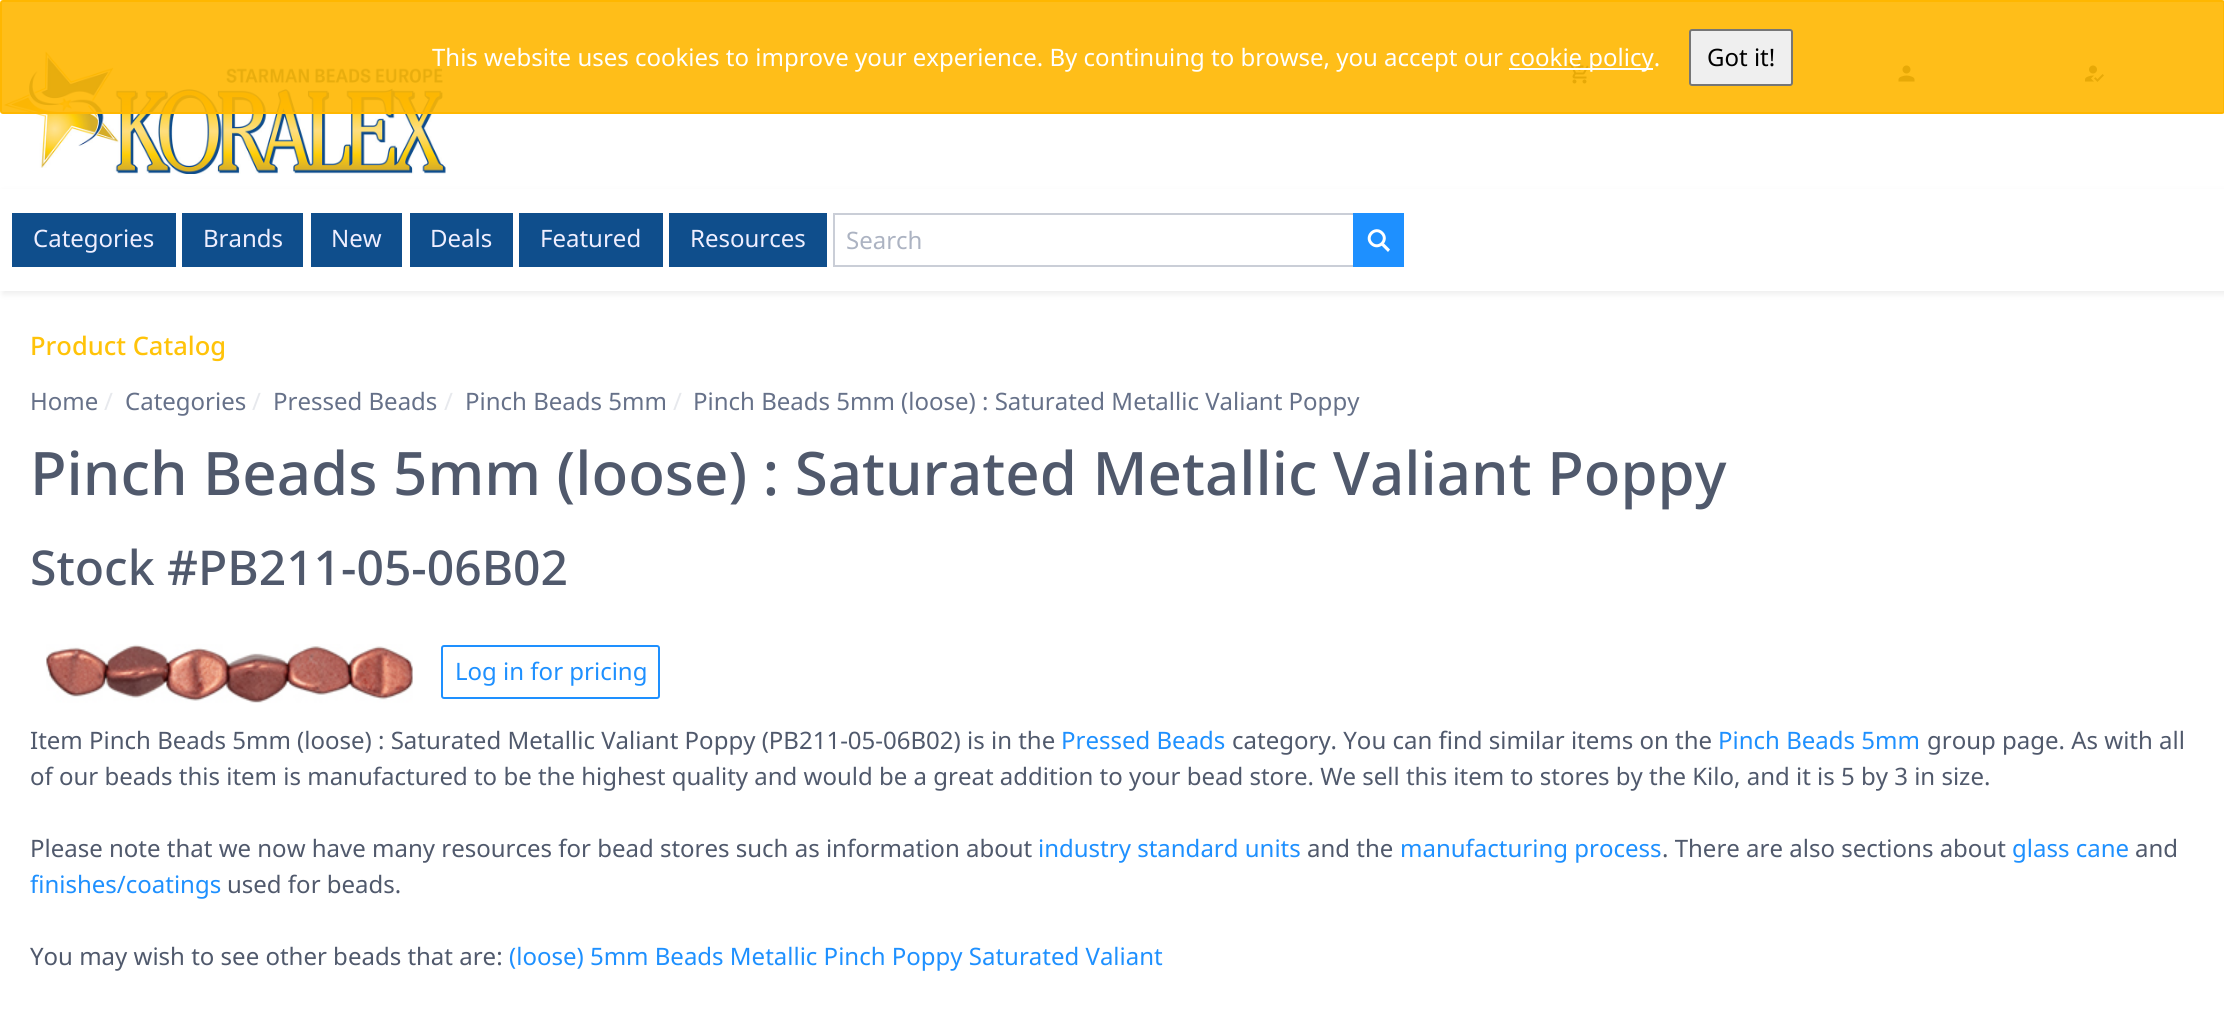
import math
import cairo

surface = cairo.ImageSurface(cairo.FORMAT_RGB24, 2224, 1034)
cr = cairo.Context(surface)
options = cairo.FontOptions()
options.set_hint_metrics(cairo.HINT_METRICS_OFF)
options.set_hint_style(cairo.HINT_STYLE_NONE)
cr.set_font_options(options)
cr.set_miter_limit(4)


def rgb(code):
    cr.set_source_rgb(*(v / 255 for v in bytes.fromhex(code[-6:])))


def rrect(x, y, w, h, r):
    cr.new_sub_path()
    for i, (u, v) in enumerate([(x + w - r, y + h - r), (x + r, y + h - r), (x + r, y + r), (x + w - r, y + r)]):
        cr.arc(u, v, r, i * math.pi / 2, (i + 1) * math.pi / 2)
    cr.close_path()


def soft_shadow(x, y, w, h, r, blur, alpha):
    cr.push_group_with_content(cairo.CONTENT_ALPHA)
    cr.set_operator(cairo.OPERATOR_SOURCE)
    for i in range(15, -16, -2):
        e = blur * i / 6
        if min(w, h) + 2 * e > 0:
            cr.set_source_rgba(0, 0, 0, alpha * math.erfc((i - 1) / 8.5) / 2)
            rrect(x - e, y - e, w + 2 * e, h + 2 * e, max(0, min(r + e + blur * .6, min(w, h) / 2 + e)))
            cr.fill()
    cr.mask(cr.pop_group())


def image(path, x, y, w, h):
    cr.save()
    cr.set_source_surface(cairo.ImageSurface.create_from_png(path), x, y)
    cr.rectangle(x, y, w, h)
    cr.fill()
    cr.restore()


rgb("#ffffff")
cr.paint()
image("img/1.png", 4, 51, 442, 123)
image("img/2.png", 1568, 62, 21, 22)
image("img/3.png", 1898, 65, 17, 17)
image("img/4.png", 2085, 65, 19, 17)
cr.set_source_rgba(1, 0.718, 0, 0.9)
rrect(1, 1, 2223, 112, 2)
cr.fill_preserve()
rgb("#ffb700")
cr.stroke()
rgb("#ffffff")
cr.rectangle(1509, 68, 144, 2)
cr.fill()
rgb("#efefef")
rrect(1690, 30, 102, 55, 2)
cr.fill_preserve()
rgb("#767676")
cr.stroke()
cr.save()
cr.set_fill_rule(cairo.FILL_RULE_EVEN_ODD)
cr.new_path()
cr.move_to(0, 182)
cr.line_to(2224, 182)
cr.line_to(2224, 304)
cr.line_to(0, 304)
cr.close_path()
cr.move_to(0, 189)
cr.line_to(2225, 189)
cr.line_to(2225, 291)
cr.line_to(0, 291)
cr.close_path()
cr.clip()
rgb("#ededed")
soft_shadow(3, 192, 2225, 102, 0, 3, 1)
cr.restore()
for x, y, w, h, color in [
    (12, 213, 164, 54, "#0f4e8c"),
    (182, 213, 121, 54, "#0f4e8c"),
    (311, 213, 91, 54, "#0f4e8c"),
    (410, 213, 103, 54, "#0f4e8c"),
    (519, 213, 144, 54, "#0f4e8c"),
    (669, 213, 158, 54, "#0f4e8c"),
]:
    rgb(color)
    cr.rectangle(x, y, w, h)
    cr.fill()
cr.rectangle(834, 214, 520, 52)
rgb("#caced7")
cr.stroke()
rgb("#1e90ff")
cr.rectangle(1353, 213, 51, 54)
cr.fill()
cr.new_path()
cr.move_to(1382, 233)
cr.curve_to(1389, 240, 1378.5, 250.5, 1371.5, 243.5)
cr.curve_to(1364.5, 236.5, 1375, 226, 1382, 233)
cr.close_path()
rgb("#ffffff")
cr.set_line_width(3)
cr.stroke()
cr.new_path()
cr.move_to(1383.5, 243)
cr.line_to(1390, 249.5)
cr.line_to(1388, 252)
cr.line_to(1381, 245)
cr.close_path()
cr.fill()
image("img/5.png", 46, 644, 367, 59)
rrect(442, 646, 217, 52, 2)
rgb("#1e90ff")
cr.set_line_width(2)
cr.stroke()
cr.select_font_face("Noto Sans")
cr.set_font_size(24)
rgb("#ffffff")
cr.move_to(432, 66)
cr.show_text("This website uses cookies to improve your experience. By continuing to browse, you accept our")
cr.move_to(1509, 66)
cr.show_text("cookie policy.")
rgb("#000000")
cr.move_to(1707, 66)
cr.show_text("Got it!")
rgb("#eeeeff")
for x, y, s in [
    (33, 247, "Categories"),
    (203, 247, "Brands"),
    (331, 247, "New"),
    (430, 247, "Deals"),
    (540, 247, "Featured"),
    (690, 247, "Resources"),
]:
    cr.move_to(x, y)
    cr.show_text(s)
rgb("#acb3c2")
cr.move_to(846, 249)
cr.show_text("Search")
cr.select_font_face("Noto Sans Medium")
cr.set_font_size(25.5)
rgb("#ffc309")
cr.move_to(30, 355)
cr.show_text("Product Catalog")
cr.select_font_face("Noto Sans")
cr.set_font_size(24)
rgb("#667189")
cr.move_to(30, 410)
cr.show_text("Home")
rgb("#e7e9ed")
cr.move_to(104, 410)
cr.show_text("/")
rgb("#667189")
cr.move_to(125, 410)
cr.show_text("Categories")
rgb("#e7e9ed")
cr.move_to(252, 410)
cr.show_text("/")
rgb("#667189")
cr.move_to(273, 410)
cr.show_text("Pressed Beads")
rgb("#e7e9ed")
cr.move_to(444, 410)
cr.show_text("/")
rgb("#667189")
cr.move_to(465, 410)
cr.show_text("Pinch Beads 5mm")
rgb("#e7e9ed")
cr.move_to(673, 410)
cr.show_text("/")
rgb("#667189")
cr.move_to(693, 410)
cr.show_text("Pinch Beads 5mm (loose) : Saturated Metallic Valiant Poppy")
cr.select_font_face("Noto Sans Medium")
cr.set_font_size(60)
rgb("#50596c")
cr.move_to(30, 495)
cr.show_text("Pinch Beads 5mm (loose) : Saturated Metallic Valiant Poppy")
cr.set_font_size(48)
cr.move_to(30, 585)
cr.show_text("Stock #PB211-05-06B02")
cr.select_font_face("Noto Sans")
cr.set_font_size(24)
rgb("#1e90ff")
cr.move_to(455, 680)
cr.show_text("Log in for pricing")
rgb("#50596c")
cr.move_to(30, 749)
cr.show_text("Item Pinch Beads 5mm (loose) : Saturated Metallic Valiant Poppy (PB211-05-06B02) is in the")
rgb("#1e90ff")
cr.move_to(1061, 749)
cr.show_text("Pressed Beads")
rgb("#50596c")
cr.move_to(1232, 749)
cr.show_text("category. You can find similar items on the")
rgb("#1e90ff")
cr.move_to(1718, 749)
cr.show_text("Pinch Beads 5mm")
rgb("#50596c")
for x, y, s in [
    (1927, 749, "group page. As with all"),
    (30, 785, "of our beads this item is manufactured to be the highest quality and would be a great addition to your bead store. We sell this item to stores by the Kilo, and it is 5 by 3 in size."),
    (30, 857, "Please note that we now have many resources for bead stores such as information about"),
]:
    cr.move_to(x, y)
    cr.show_text(s)
rgb("#1e90ff")
cr.move_to(1038, 857)
cr.show_text("industry standard units")
rgb("#50596c")
cr.move_to(1307, 857)
cr.show_text("and the")
rgb("#1e90ff")
cr.move_to(1400, 857)
cr.show_text("manufacturing process")
rgb("#50596c")
cr.move_to(1662, 857)
cr.show_text(". There are also sections about")
rgb("#1e90ff")
cr.move_to(2012, 857)
cr.show_text("glass cane")
rgb("#50596c")
cr.move_to(2135, 857)
cr.show_text("and")
rgb("#1e90ff")
cr.move_to(30, 893)
cr.show_text("finishes/coatings")
rgb("#50596c")
cr.move_to(227, 893)
cr.show_text("used for beads.")
cr.move_to(30, 965)
cr.show_text("You may wish to see other beads that are:")
rgb("#1e90ff")
cr.move_to(509, 965)
cr.show_text("(loose) 5mm Beads Metallic Pinch Poppy Saturated Valiant")
surface.write_to_png("page.png")
